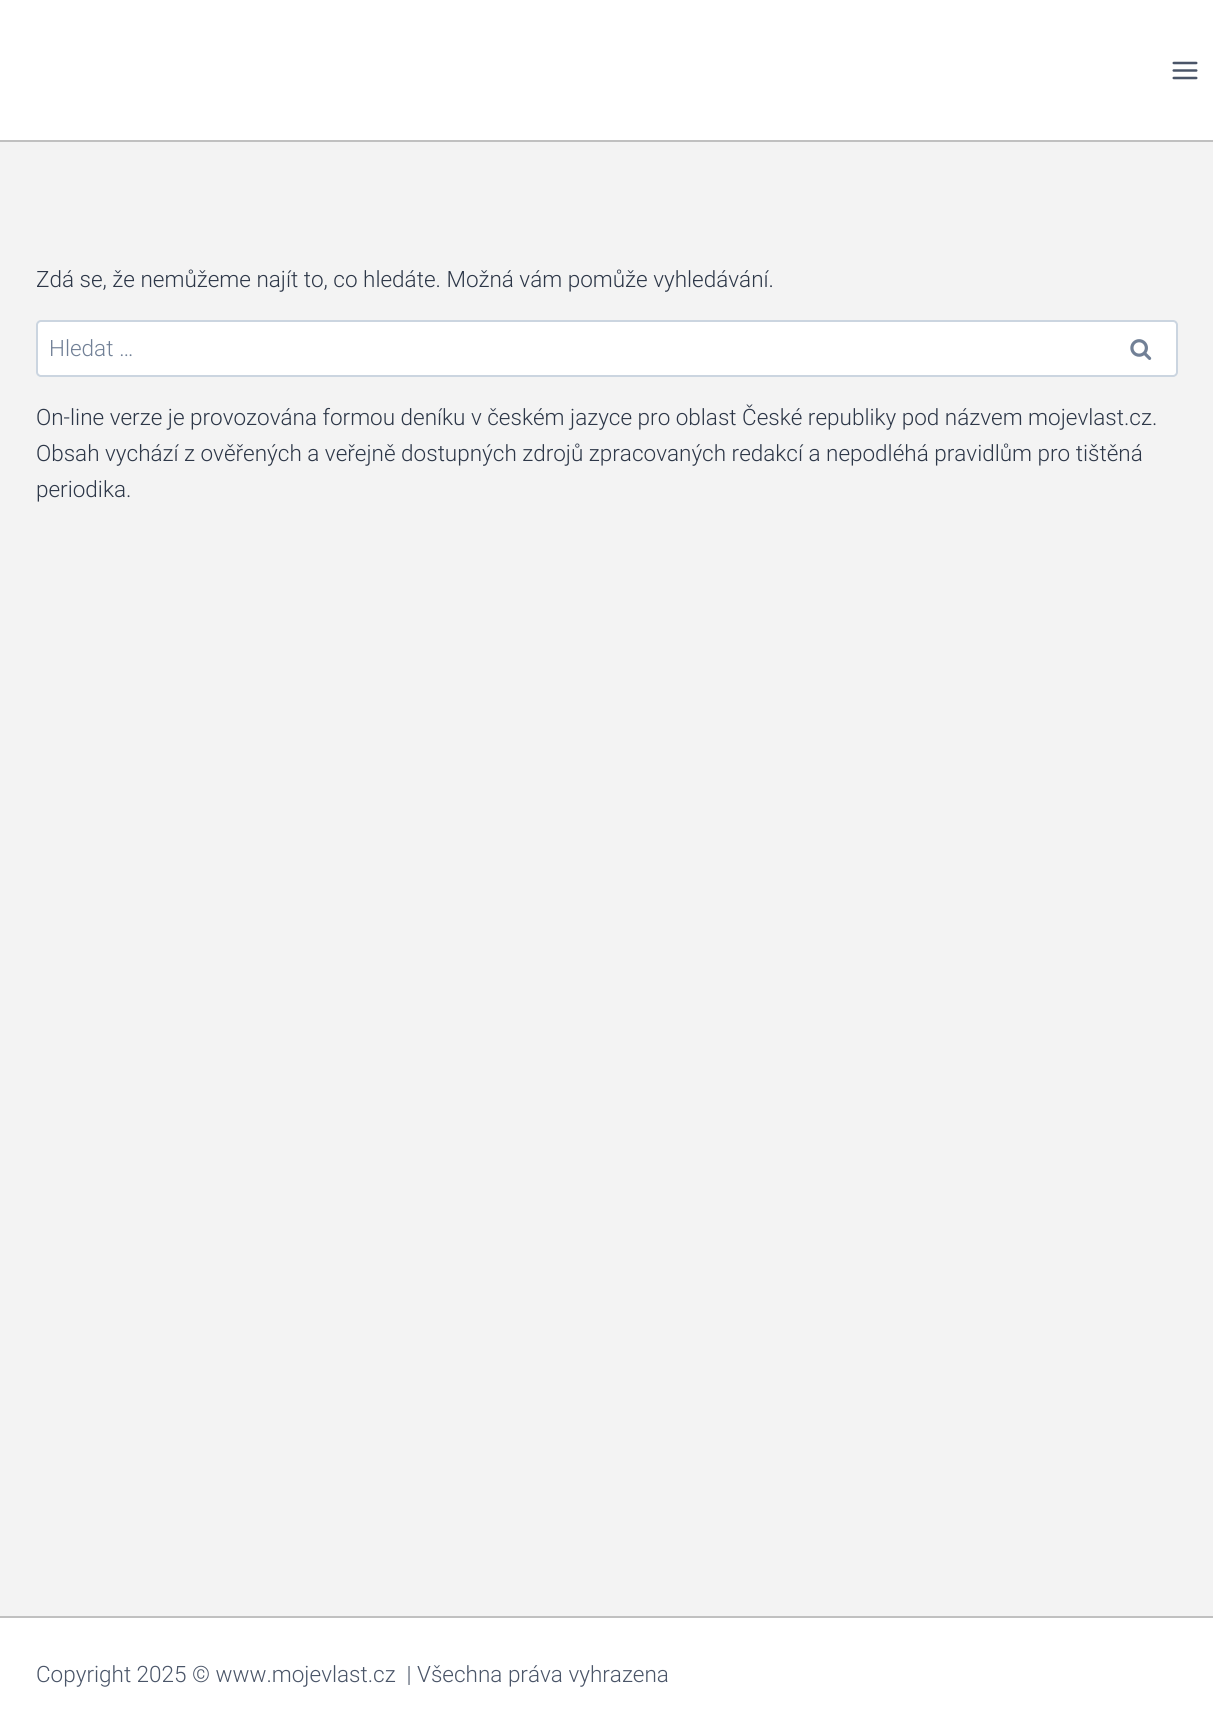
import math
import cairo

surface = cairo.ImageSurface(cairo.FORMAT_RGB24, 1213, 1731)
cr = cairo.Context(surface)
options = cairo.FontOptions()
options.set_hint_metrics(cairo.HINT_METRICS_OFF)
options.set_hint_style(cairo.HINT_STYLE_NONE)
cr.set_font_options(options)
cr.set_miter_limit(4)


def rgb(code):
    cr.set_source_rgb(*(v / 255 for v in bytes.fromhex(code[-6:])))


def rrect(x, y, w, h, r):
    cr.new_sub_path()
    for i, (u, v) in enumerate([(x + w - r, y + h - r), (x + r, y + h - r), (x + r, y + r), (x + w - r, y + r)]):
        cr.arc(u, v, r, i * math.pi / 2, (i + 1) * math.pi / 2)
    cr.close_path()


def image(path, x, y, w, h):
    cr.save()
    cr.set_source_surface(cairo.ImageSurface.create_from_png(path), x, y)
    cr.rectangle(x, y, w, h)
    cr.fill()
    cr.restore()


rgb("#f3f3f3")
cr.paint()
rgb("#ffffff")
cr.rectangle(0, 0, 1213, 140)
cr.fill()
rgb("#c0c0c0")
cr.rectangle(0, 140, 1213, 2)
cr.fill()
image("img/1.png", 1172, 61, 26, 19)
rgb("#ffffff")
rrect(37, 321, 1140, 55, 4)
cr.fill_preserve()
rgb("#cbd5e0")
cr.stroke()
image("img/2.png", 1130, 339, 22, 21)
rgb("#ffffff")
cr.rectangle(0, 1618, 1213, 113)
cr.fill()
rgb("#c0c0c0")
cr.rectangle(0, 1616, 1213, 2)
cr.fill()
cr.select_font_face("Roboto Light")
cr.set_font_size(22.5)
rgb("#2d3748")
cr.move_to(36, 287)
cr.show_text("Zdá se, že nemůžeme najít to, co hledáte. Možná vám pomůže vyhledávání.")
rgb("#718096")
cr.move_to(49, 356)
cr.show_text("Hledat …")
rgb("#2d3748")
for x, y, s in [
    (36, 425, "On-line verze je provozována formou deníku v českém jazyce pro oblast České republiky pod názvem mojevlast.cz."),
    (36, 461, "Obsah vychází z ověřených a veřejně dostupných zdrojů zpracovaných redakcí a nepodléhá pravidlům pro tištěná"),
    (36, 497, "periodika."),
]:
    cr.move_to(x, y)
    cr.show_text(s)
rgb("#4a5568")
cr.move_to(36, 1682)
cr.show_text("Copyright 2025 © www.mojevlast.cz  | Všechna práva vyhrazena")
surface.write_to_png("page.png")
